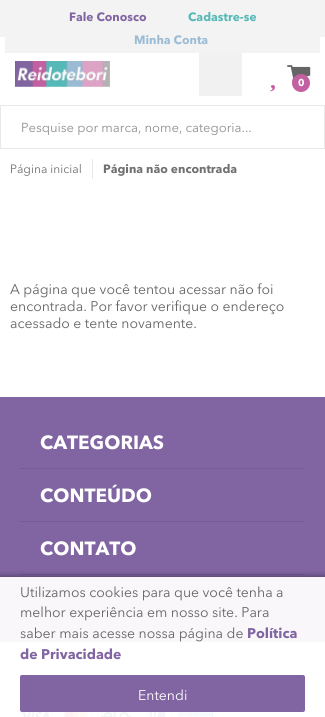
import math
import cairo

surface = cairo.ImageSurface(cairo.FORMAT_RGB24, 325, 717)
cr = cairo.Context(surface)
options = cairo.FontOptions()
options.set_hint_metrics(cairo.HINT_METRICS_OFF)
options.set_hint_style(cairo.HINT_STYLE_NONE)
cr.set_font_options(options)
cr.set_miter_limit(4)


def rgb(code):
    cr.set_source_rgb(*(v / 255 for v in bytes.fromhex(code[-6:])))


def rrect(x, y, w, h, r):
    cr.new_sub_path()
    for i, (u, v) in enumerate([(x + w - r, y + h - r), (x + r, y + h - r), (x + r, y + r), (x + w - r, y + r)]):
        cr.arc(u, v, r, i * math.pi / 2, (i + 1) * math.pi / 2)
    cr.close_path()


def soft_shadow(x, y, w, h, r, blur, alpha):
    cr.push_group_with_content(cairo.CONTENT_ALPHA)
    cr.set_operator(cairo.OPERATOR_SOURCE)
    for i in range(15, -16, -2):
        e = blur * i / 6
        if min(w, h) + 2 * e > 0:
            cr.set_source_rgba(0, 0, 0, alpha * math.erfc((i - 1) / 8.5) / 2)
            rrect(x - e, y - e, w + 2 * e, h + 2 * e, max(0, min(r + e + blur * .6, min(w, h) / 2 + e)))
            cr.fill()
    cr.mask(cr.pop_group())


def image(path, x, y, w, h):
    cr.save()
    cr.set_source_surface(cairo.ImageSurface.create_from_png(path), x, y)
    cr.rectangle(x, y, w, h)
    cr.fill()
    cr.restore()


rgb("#ffffff")
cr.paint()
rgb("#f3f3f3")
cr.rectangle(0, 0, 325, 37)
cr.fill()
cr.rectangle(5, 37, 315, 16)
cr.fill()
image("img/1.png", 15, 61, 95, 26)
rgb("#f1f1f1")
cr.rectangle(199, 53, 43, 43)
cr.fill()
image("img/2.png", 287, 65, 24, 20)
rgb("#c360a1")
cr.arc(301, 83, 9, 0, 2 * math.pi)
cr.fill()
image("img/3.png", 270, 85, 5, 7)
cr.rectangle(0.5, 105.5, 324, 43)
rgb("#e9e9e9")
cr.set_line_width(1)
cr.stroke()
for x, y, w, h, color in [
    (92, 159, 1, 20, "#e6e6e6"),
    (0, 397, 325, 180, "#8165a2"),
    (0, 577, 325, 65, "#f9f7fa"),
    (20, 468, 285, 1, "#765a96"),
    (20, 521, 285, 1, "#765a96"),
    (20, 574, 285, 1, "#765a96"),
]:
    rgb(color)
    cr.rectangle(x, y, w, h)
    cr.fill()
image("img/4.png", 18, 706, 35, 11)
image("img/5.png", 58, 712, 35, 5)
image("img/6.png", 98, 712, 35, 5)
image("img/7.png", 138, 712, 35, 5)
image("img/8.png", 178, 712, 35, 5)
cr.save()
cr.rectangle(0, 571, 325, 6)
cr.clip()
rgb("#000000")
soft_shadow(0, 577, 325, 140, 0, 3.5, 0.5)
cr.restore()
rgb("#8165a2")
rrect(20, 675, 285, 37, 2)
cr.fill()
cr.select_font_face("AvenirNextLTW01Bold", cairo.FONT_SLANT_NORMAL, cairo.FONT_WEIGHT_BOLD)
cr.set_font_size(12)
cr.move_to(69, 21)
cr.show_text("Fale Conosco")
rgb("#55b9b7")
cr.move_to(188, 21)
cr.show_text("Cadastre-se")
rgb("#9abcd5")
cr.move_to(134, 44)
cr.show_text("Minha Conta")
cr.set_font_size(10)
rgb("#ffffff")
cr.move_to(298, 86)
cr.show_text("0")
cr.save()
cr.rectangle(21, 120, 283, 15)
cr.clip()
cr.select_font_face("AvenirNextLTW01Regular")
cr.set_font_size(13)
rgb("#909090")
cr.move_to(21, 132)
cr.show_text("Pesquise por marca, nome, categoria...")
cr.restore()
cr.select_font_face("AvenirNextLTW01Regular")
cr.set_font_size(12)
rgb("#707070")
cr.move_to(10, 173)
cr.show_text("Página inicial")
cr.select_font_face("AvenirNextLTW01Bold", cairo.FONT_SLANT_NORMAL, cairo.FONT_WEIGHT_BOLD)
cr.move_to(103, 173)
cr.show_text("Página não encontrada")
cr.select_font_face("AvenirNextLTW01Regular")
cr.set_font_size(14)
rgb("#656565")
for x, y, s in [
    (10, 294, "A página que você tentou acessar não foi"),
    (10, 311, "encontrada. Por favor verifique o endereço"),
    (10, 328, "acessado e tente novamente."),
]:
    cr.move_to(x, y)
    cr.show_text(s)
cr.select_font_face("AvenirNextLTW01Bold", cairo.FONT_SLANT_NORMAL, cairo.FONT_WEIGHT_BOLD)
cr.set_font_size(19)
rgb("#ffffff")
for x, y, s in [
    (40, 449, "CATEGORIAS"),
    (40, 502, "CONTEÚDO"),
    (40, 555, "CONTATO"),
]:
    cr.move_to(x, y)
    cr.show_text(s)
cr.select_font_face("AvenirNextLTW01Regular")
cr.set_font_size(14)
rgb("#656565")
for x, y, s in [
    (20, 597, "Utilizamos cookies para que você tenha a"),
    (20, 617, "melhor experiência em nosso site. Para"),
    (20, 638, "saber mais acesse nossa página de"),
]:
    cr.move_to(x, y)
    cr.show_text(s)
cr.select_font_face("AvenirNextLTW01Bold", cairo.FONT_SLANT_NORMAL, cairo.FONT_WEIGHT_BOLD)
rgb("#8165a2")
cr.move_to(247, 638)
cr.show_text("Política")
cr.move_to(20, 659)
cr.show_text("de Privacidade")
cr.select_font_face("AvenirNextLTW01Regular")
rgb("#ffffff")
cr.move_to(138, 700)
cr.show_text("Entendi")
surface.write_to_png("page.png")
